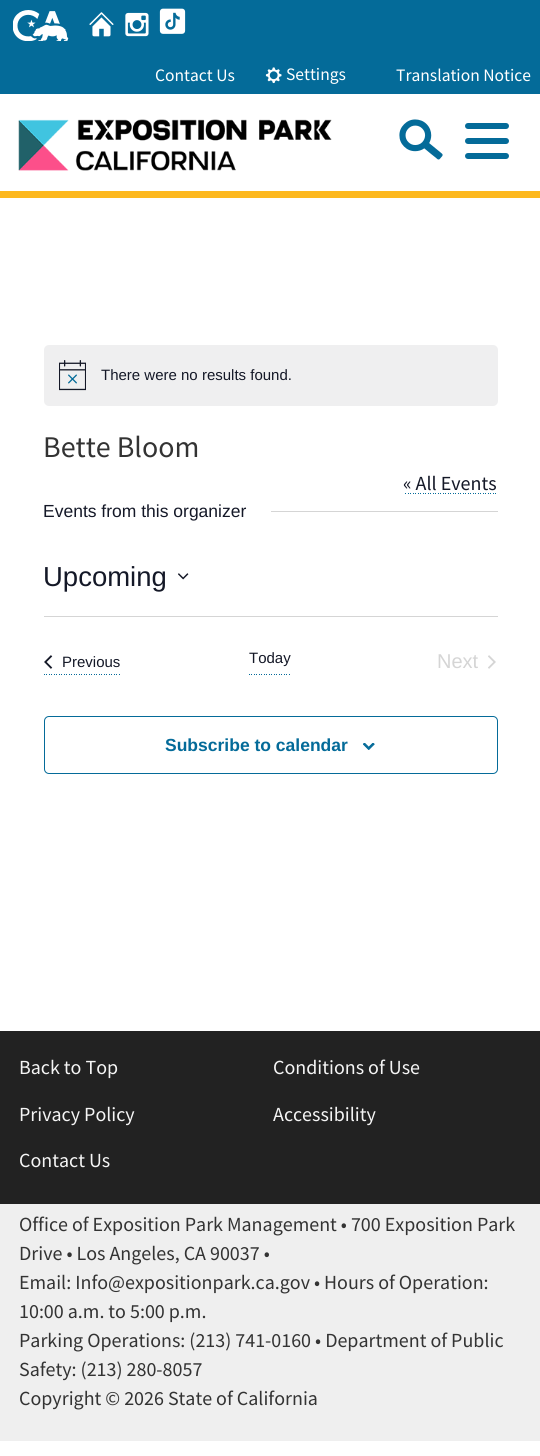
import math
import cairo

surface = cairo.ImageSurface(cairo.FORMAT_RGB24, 540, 1456)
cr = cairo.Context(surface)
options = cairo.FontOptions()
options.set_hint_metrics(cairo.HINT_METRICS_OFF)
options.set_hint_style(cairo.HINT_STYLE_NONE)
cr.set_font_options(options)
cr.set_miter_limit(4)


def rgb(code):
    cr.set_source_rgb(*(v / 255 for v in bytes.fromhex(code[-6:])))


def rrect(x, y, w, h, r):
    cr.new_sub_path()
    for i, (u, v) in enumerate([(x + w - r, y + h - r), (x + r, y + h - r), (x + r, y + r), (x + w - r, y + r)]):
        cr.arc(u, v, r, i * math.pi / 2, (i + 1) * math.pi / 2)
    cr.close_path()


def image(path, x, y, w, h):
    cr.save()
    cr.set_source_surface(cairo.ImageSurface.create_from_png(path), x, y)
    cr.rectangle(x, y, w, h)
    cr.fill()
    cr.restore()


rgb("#ffffff")
cr.paint()
rgb("#046b99")
cr.rectangle(0, 0, 540, 94)
cr.fill()
image("img/1.png", 13, 10, 56, 31)
image("img/2.png", 89, 12, 25, 25)
image("img/3.png", 125, 12, 24, 25)
image("img/4.png", 159, 8, 27, 26)
image("img/5.png", 265, 67, 17, 17)
image("img/6.png", 18, 119, 314, 52)
image("img/7.png", 399, 119, 44, 41)
rrect(465, 123, 44, 6, 3)
cr.fill()
rrect(465, 138, 44, 6, 3)
cr.fill()
rrect(465, 153, 44, 6, 3)
cr.fill()
rgb("#fdb81e")
cr.rectangle(0, 191, 540, 7)
cr.fill()
rgb("#efeff0")
rrect(44, 345, 454, 61, 5)
cr.fill()
image("img/8.png", 59, 360, 27, 31)
image("img/9.png", 405, 493, 91, 1)
rgb("#d5d5d5")
cr.rectangle(271, 511, 227, 1)
cr.fill()
image("img/10.png", 178, 573, 11, 7)
cr.rectangle(44, 616, 454, 1)
cr.fill()
image("img/11.png", 44, 674, 76, 1)
image("img/12.png", 44, 655, 9, 14)
image("img/13.png", 249, 674, 41, 1)
image("img/14.png", 488, 655, 8, 14)
rrect(44.5, 716.5, 453, 57, 4.5)
rgb("#046b99")
cr.set_line_width(1)
cr.stroke()
image("img/15.png", 363, 743, 12, 7)
rgb("#222222")
cr.rectangle(0, 1031, 540, 173)
cr.fill()
rgb("#efefef")
cr.rectangle(0, 1204, 540, 237)
cr.fill()
cr.select_font_face("Source Sans Pro")
cr.set_font_size(17.5)
rgb("#ffffff")
for x, y, s in [
    (155, 81, "Contact Us"),
    (286, 80, "Settings"),
    (396, 81, "Translation Notice"),
]:
    cr.move_to(x, y)
    cr.show_text(s)
cr.select_font_face("Liberation Sans")
cr.set_font_size(15)
rgb("#141827")
cr.move_to(101, 380)
cr.show_text("There were no results found.")
cr.select_font_face("Source Sans Pro")
cr.set_font_size(30)
rgb("#333333")
cr.move_to(43, 457)
cr.show_text("Bette Bloom")
cr.set_font_size(20)
rgb("#141827")
cr.move_to(403, 490)
cr.show_text("« All Events")
cr.select_font_face("Liberation Sans")
cr.set_font_size(17.5)
cr.move_to(43, 517)
cr.show_text("Events from this organizer")
cr.set_font_size(27.5)
cr.move_to(43, 586)
cr.show_text("Upcoming")
cr.set_font_size(15)
cr.move_to(62, 667)
cr.show_text("Previous")
cr.move_to(249, 663)
cr.show_text("Today")
cr.set_font_size(20)
rgb("#d5d5d5")
cr.move_to(437, 668)
cr.show_text("Next")
cr.select_font_face("Liberation Sans", cairo.FONT_SLANT_NORMAL, cairo.FONT_WEIGHT_BOLD)
cr.set_font_size(17.5)
rgb("#046b99")
cr.move_to(165, 751)
cr.show_text("Subscribe to calendar")
cr.select_font_face("Source Sans Pro")
cr.set_font_size(20)
rgb("#f5f5f5")
for x, y, s in [
    (19, 1074, "Back to Top"),
    (273, 1074, "Conditions of Use"),
    (19, 1121, "Privacy Policy"),
    (273, 1121, "Accessibility"),
    (19, 1167, "Contact Us"),
]:
    cr.move_to(x, y)
    cr.show_text(s)
rgb("#333333")
for x, y, s in [
    (19, 1231, "Office of Exposition Park Management • 700 Exposition Park"),
    (19, 1260, "Drive • Los Angeles, CA 90037 •"),
    (19, 1289, "Email: Info@expositionpark.ca.gov • Hours of Operation:"),
    (19, 1318, "10:00 a.m. to 5:00 p.m."),
    (19, 1347, "Parking Operations: (213) 741-0160 • Department of Public"),
    (19, 1376, "Safety: (213) 280-8057"),
    (19, 1405, "Copyright © 2026 State of California"),
]:
    cr.move_to(x, y)
    cr.show_text(s)
surface.write_to_png("page.png")
